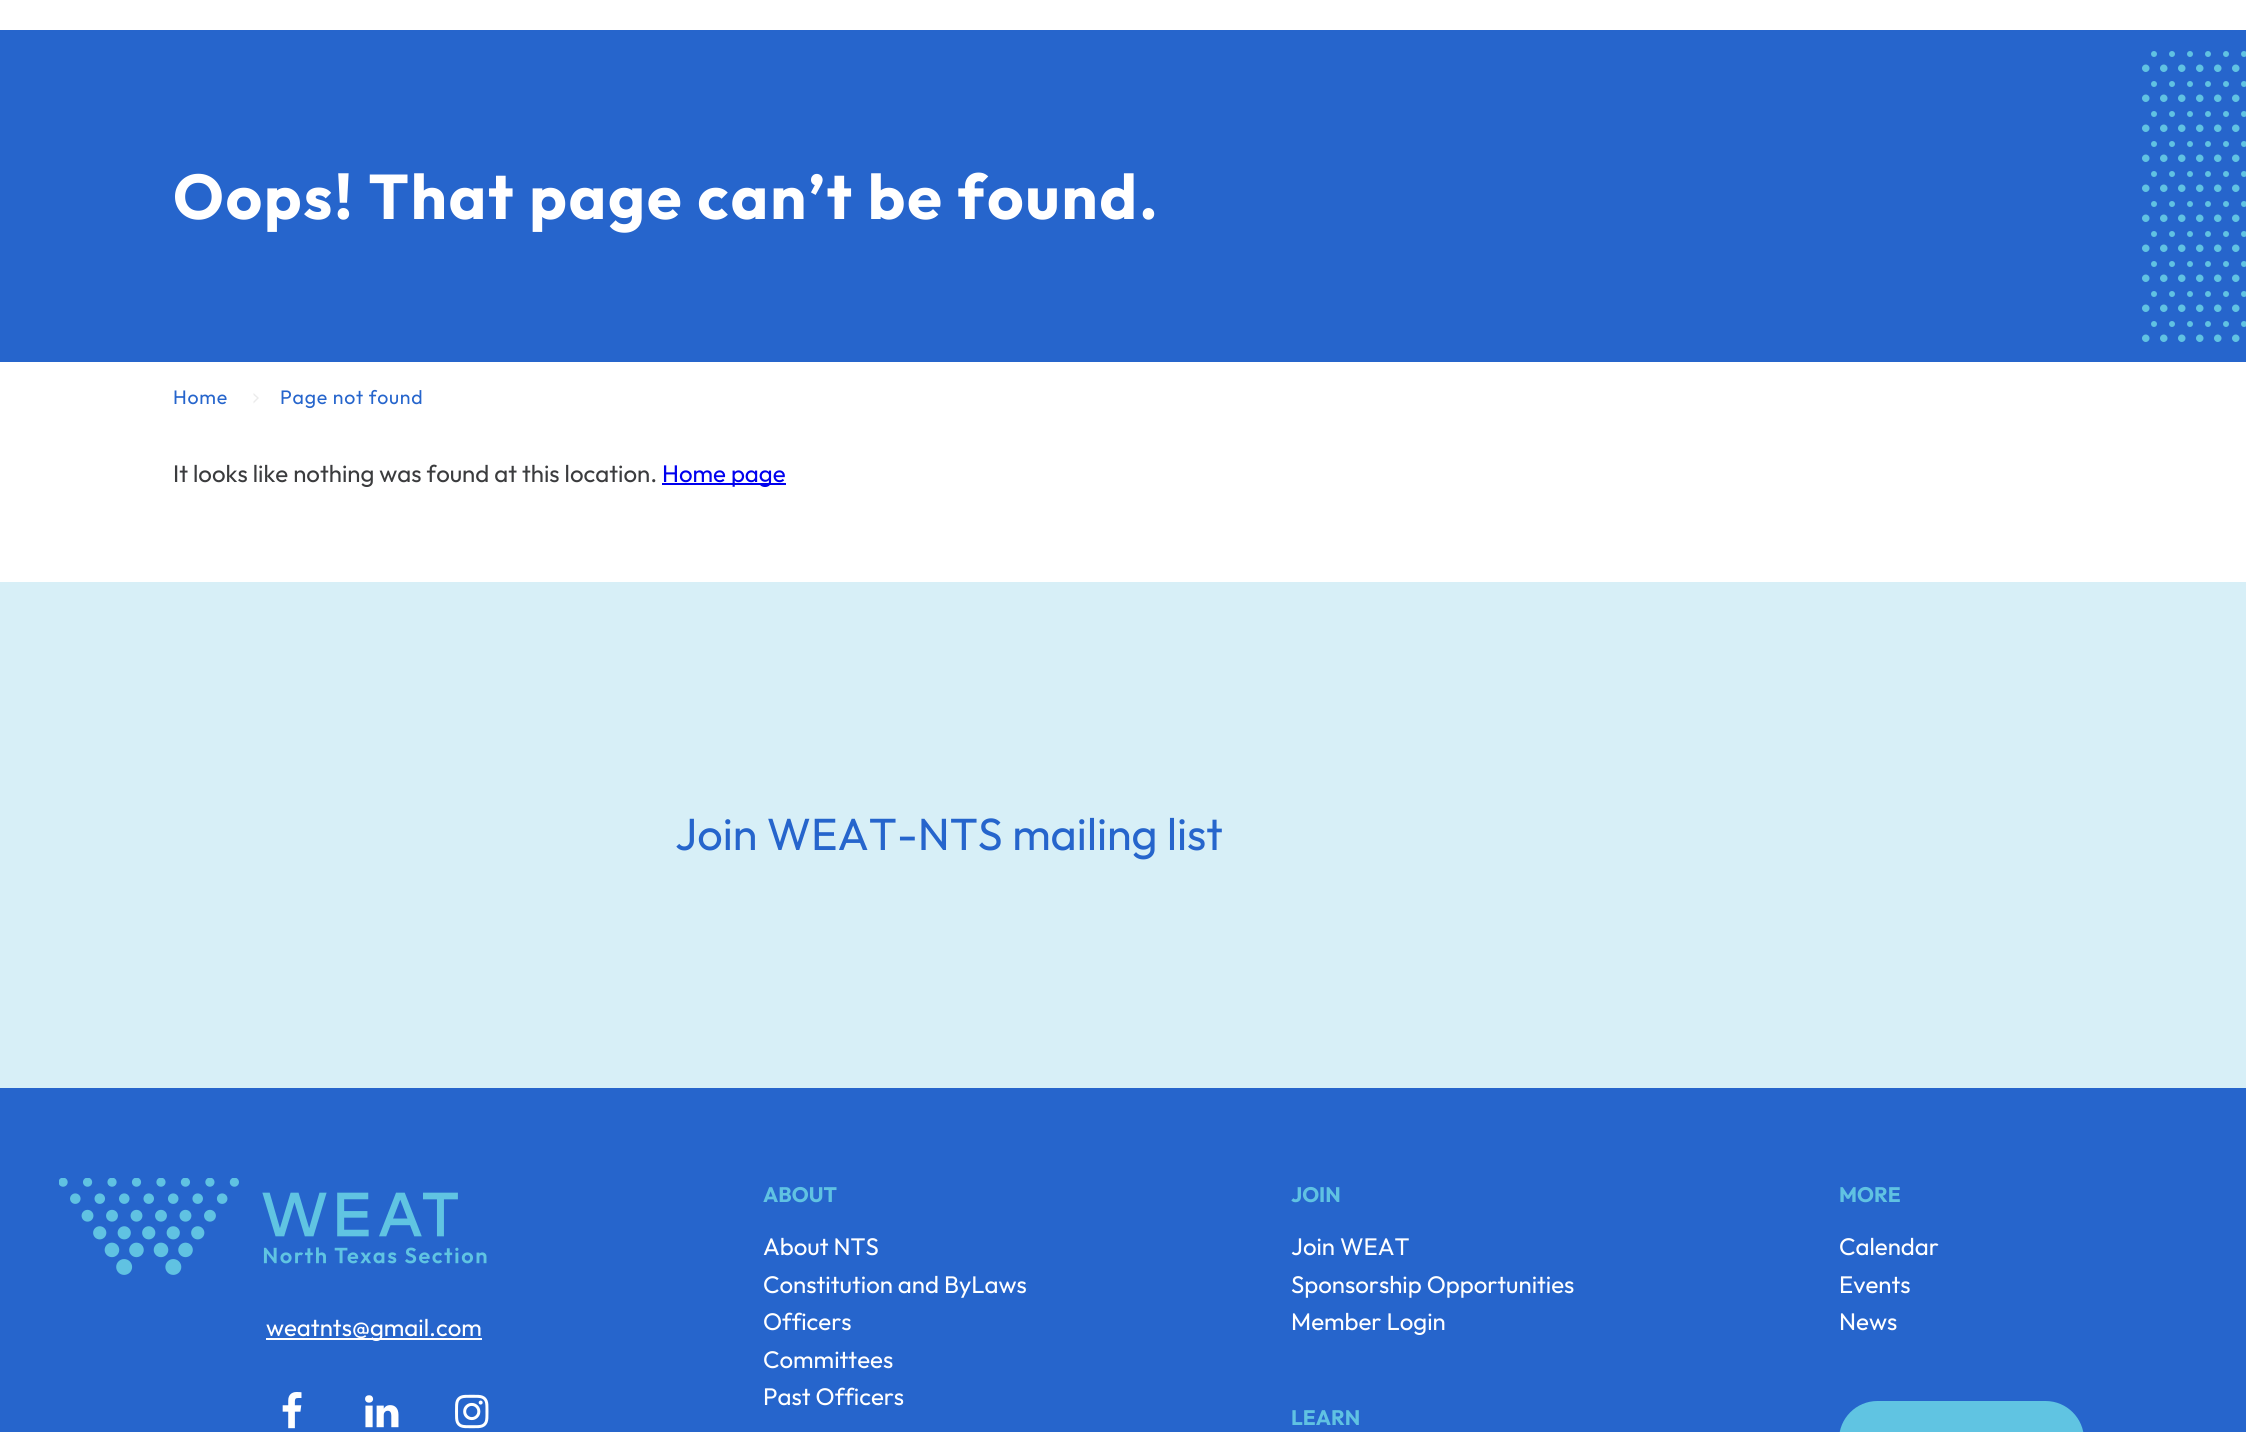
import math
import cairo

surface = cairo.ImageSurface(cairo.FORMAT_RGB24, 2246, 1432)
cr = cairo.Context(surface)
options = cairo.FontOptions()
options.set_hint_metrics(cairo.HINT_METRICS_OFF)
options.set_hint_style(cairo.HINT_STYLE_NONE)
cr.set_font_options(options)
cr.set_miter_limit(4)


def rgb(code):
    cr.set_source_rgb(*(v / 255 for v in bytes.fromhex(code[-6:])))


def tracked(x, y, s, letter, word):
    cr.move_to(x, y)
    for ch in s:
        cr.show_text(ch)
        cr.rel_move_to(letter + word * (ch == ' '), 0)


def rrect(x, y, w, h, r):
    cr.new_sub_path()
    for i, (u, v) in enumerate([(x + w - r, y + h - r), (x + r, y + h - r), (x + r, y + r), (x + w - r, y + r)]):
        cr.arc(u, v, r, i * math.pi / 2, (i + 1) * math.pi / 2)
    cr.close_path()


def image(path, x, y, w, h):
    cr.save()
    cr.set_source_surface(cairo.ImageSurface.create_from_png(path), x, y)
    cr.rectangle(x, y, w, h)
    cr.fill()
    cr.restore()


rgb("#ffffff")
cr.paint()
rgb("#2665cc")
cr.rectangle(0, 30, 2246, 332)
cr.fill()
image("img/1.png", 2142, 51, 104, 291)
rgb("#ebebeb")
cr.new_path()
cr.move_to(253.5, 393)
cr.line_to(259, 398)
cr.line_to(257, 398)
cr.line_to(253.5, 395)
cr.close_path()
cr.move_to(259, 398)
cr.line_to(253.5, 403.5)
cr.line_to(253.5, 401.5)
cr.line_to(257, 398)
cr.close_path()
cr.fill()
for x, y, w, h, color in [
    (662, 483, 124, 2, "#0000ee"),
    (0, 582, 2246, 506, "#d7eff7"),
    (0, 1088, 2246, 344, "#2665cc"),
]:
    rgb(color)
    cr.rectangle(x, y, w, h)
    cr.fill()
image("img/2.png", 59, 1178, 428, 97)
rgb("#ffffff")
cr.rectangle(266, 1338, 216, 2)
cr.fill()
image("img/3.png", 282, 1392, 20, 37)
image("img/4.png", 365, 1395, 34, 33)
image("img/5.png", 455, 1394, 34, 35)
rgb("#60c4e2")
rrect(1839, 1401, 245, 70, 38.5)
cr.fill()
cr.select_font_face("Outfit", cairo.FONT_SLANT_NORMAL, cairo.FONT_WEIGHT_BOLD)
cr.set_font_size(63)
rgb("#ffffff")
tracked(173, 219, "Oops! That page can’t be found.", 2, 0)
cr.select_font_face("Outfit")
cr.set_font_size(19.5)
rgb("#2665cc")
tracked(173, 404, "Home", 0.75, 0)
tracked(280, 404, "Page not found", 0.75, 0)
cr.set_font_size(24)
rgb("#3b3c3e")
cr.move_to(173, 482)
cr.show_text("It looks like nothing was found at this location.")
rgb("#0000ee")
cr.move_to(662, 482)
cr.show_text("Home page")
cr.set_font_size(45)
rgb("#2665cc")
cr.move_to(675, 850)
cr.show_text("Join WEAT-NTS mailing list")
cr.set_font_size(24)
rgb("#ffffff")
cr.move_to(266, 1336)
cr.show_text("weatnts@gmail.com")
cr.select_font_face("Outfit", cairo.FONT_SLANT_NORMAL, cairo.FONT_WEIGHT_BOLD)
cr.set_font_size(21)
rgb("#60c2e2")
cr.move_to(763, 1202)
cr.show_text("ABOUT")
cr.select_font_face("Outfit")
cr.set_font_size(24)
rgb("#ffffff")
for x, y, s in [
    (763, 1255, "About NTS"),
    (763, 1293, "Constitution and ByLaws"),
    (763, 1330, "Officers"),
    (763, 1368, "Committees"),
    (763, 1405, "Past Officers"),
]:
    cr.move_to(x, y)
    cr.show_text(s)
cr.select_font_face("Outfit", cairo.FONT_SLANT_NORMAL, cairo.FONT_WEIGHT_BOLD)
cr.set_font_size(21)
rgb("#60c2e2")
cr.move_to(1291, 1202)
cr.show_text("JOIN")
cr.select_font_face("Outfit")
cr.set_font_size(24)
rgb("#ffffff")
for x, y, s in [
    (1291, 1255, "Join WEAT"),
    (1291, 1293, "Sponsorship Opportunities"),
    (1291, 1330, "Member Login"),
]:
    cr.move_to(x, y)
    cr.show_text(s)
cr.select_font_face("Outfit", cairo.FONT_SLANT_NORMAL, cairo.FONT_WEIGHT_BOLD)
cr.set_font_size(21)
rgb("#60c2e2")
cr.move_to(1291, 1425)
cr.show_text("LEARN")
cr.move_to(1839, 1202)
cr.show_text("MORE")
cr.select_font_face("Outfit")
cr.set_font_size(24)
rgb("#ffffff")
for x, y, s in [
    (1839, 1255, "Calendar"),
    (1839, 1293, "Events"),
    (1839, 1330, "News"),
]:
    cr.move_to(x, y)
    cr.show_text(s)
surface.write_to_png("page.png")
